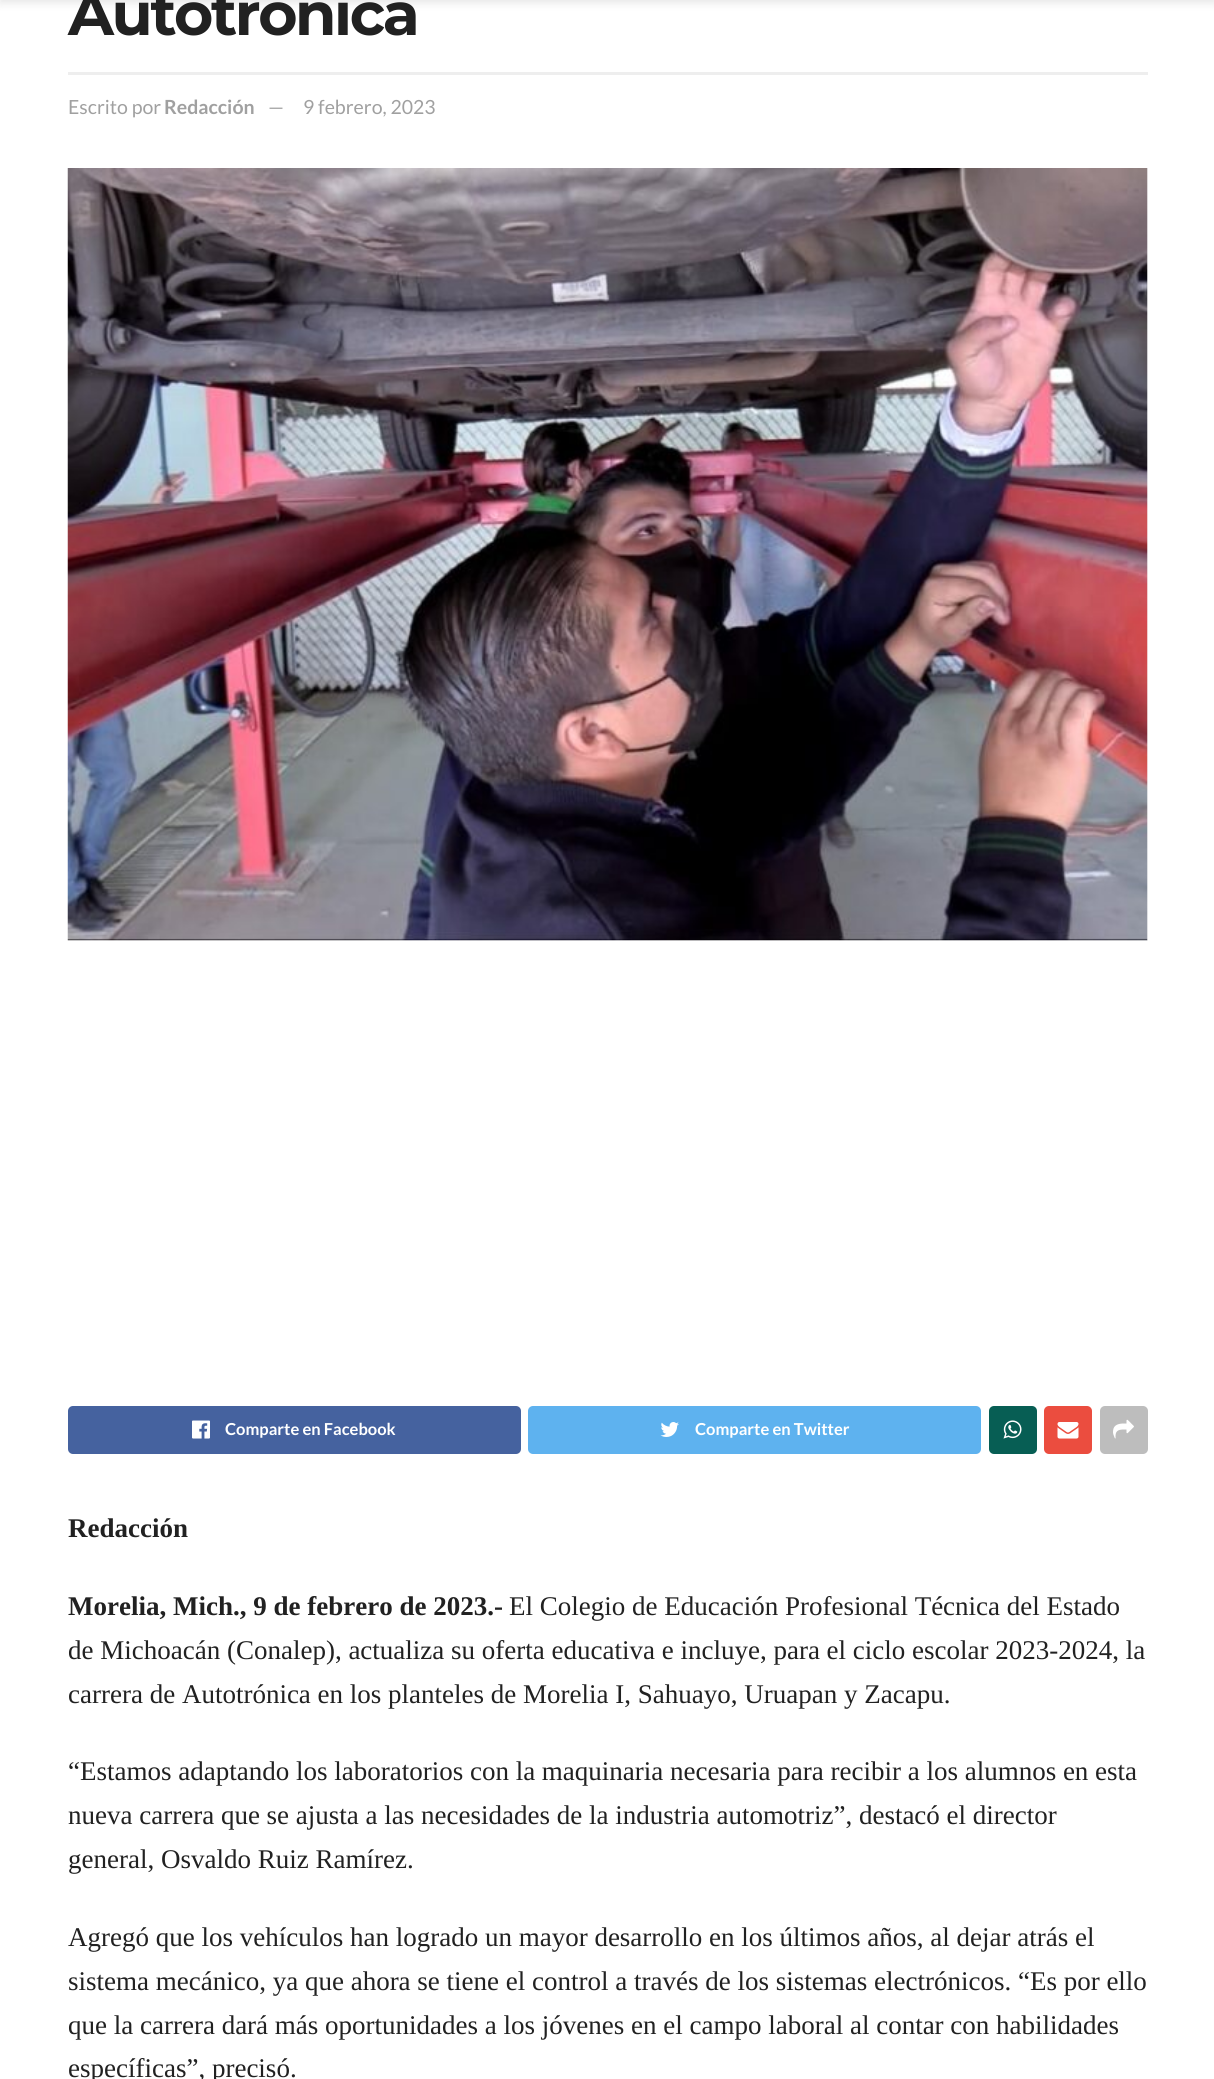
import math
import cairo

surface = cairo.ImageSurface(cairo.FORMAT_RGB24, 1214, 2079)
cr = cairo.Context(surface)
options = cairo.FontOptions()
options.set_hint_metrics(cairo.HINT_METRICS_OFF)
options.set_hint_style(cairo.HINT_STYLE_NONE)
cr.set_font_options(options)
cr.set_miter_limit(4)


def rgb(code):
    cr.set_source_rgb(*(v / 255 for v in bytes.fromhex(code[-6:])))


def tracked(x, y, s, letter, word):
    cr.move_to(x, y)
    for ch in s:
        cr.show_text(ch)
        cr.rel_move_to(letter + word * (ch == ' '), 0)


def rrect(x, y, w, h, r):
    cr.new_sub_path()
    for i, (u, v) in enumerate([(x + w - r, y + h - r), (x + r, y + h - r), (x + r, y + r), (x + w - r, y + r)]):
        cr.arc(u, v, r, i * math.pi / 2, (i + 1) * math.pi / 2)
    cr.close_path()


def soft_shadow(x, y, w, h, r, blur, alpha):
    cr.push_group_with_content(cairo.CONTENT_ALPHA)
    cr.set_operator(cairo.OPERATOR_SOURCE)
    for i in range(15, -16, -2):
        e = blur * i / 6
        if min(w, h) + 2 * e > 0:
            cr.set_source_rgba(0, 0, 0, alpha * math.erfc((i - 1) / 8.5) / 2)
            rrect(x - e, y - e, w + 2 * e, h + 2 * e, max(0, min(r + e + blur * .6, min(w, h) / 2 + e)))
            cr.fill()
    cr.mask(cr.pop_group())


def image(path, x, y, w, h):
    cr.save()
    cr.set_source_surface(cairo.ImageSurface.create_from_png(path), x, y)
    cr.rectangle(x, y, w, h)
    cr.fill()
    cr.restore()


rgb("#ffffff")
cr.paint()
rgb("#000000")
soft_shadow(0, -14, 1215, 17, 0, 4.5, 0.1)
rgb("#eeeeee")
cr.rectangle(68, 72, 1080, 3)
cr.fill()
rgb("#f7f7f7")
cr.rectangle(68, 168, 1080, 773)
cr.fill()
image("img/1.png", 67, 168, 1081, 773)
rgb("#45629f")
rrect(68, 1406, 453, 48, 5)
cr.fill()
image("img/2.png", 192, 1420, 18, 19)
rgb("#5eb2ef")
rrect(528, 1406, 453, 48, 5)
cr.fill()
image("img/3.png", 660, 1422, 19, 15)
rgb("#075e54")
rrect(989, 1406, 48, 48, 5)
cr.fill()
image("img/4.png", 1003, 1420, 19, 19)
rgb("#eb4d3f")
rrect(1044, 1406, 48, 48, 5)
cr.fill()
image("img/5.png", 1057, 1422, 22, 17)
rgb("#bdbdbd")
rrect(1100, 1406, 48, 48, 5)
cr.fill()
image("img/6.png", 1113, 1419, 21, 20)
cr.select_font_face("Montserrat", cairo.FONT_SLANT_NORMAL, cairo.FONT_WEIGHT_BOLD)
cr.set_font_size(60)
rgb("#212121")
tracked(68, 35, "Autotrónica", -2.4, 0)
cr.select_font_face("Lato")
cr.set_font_size(19.5)
rgb("#a0a0a0")
cr.move_to(68, 114)
cr.show_text("Escrito por")
cr.select_font_face("Lato", cairo.FONT_SLANT_NORMAL, cairo.FONT_WEIGHT_BOLD)
cr.move_to(164, 114)
cr.show_text("Redacción")
cr.select_font_face("Lato")
cr.move_to(268, 114)
cr.show_text("—")
cr.move_to(303, 114)
cr.show_text("9 febrero, 2023")
cr.select_font_face("Lato", cairo.FONT_SLANT_NORMAL, cairo.FONT_WEIGHT_BOLD)
cr.set_font_size(16.5)
rgb("#ffffff")
cr.move_to(225, 1435)
cr.show_text("Comparte en Facebook")
cr.move_to(695, 1435)
cr.show_text("Comparte en Twitter")
cr.select_font_face("Liberation Serif", cairo.FONT_SLANT_NORMAL, cairo.FONT_WEIGHT_BOLD)
cr.set_font_size(27)
rgb("#212121")
cr.move_to(68, 1537)
cr.show_text("Redacción")
cr.move_to(68, 1615)
cr.show_text("Morelia, Mich., 9 de febrero de 2023.-")
cr.select_font_face("Liberation Serif")
for x, y, s in [
    (509, 1615, "El Colegio de Educación Profesional Técnica del Estado"),
    (68, 1659, "de Michoacán (Conalep), actualiza su oferta educativa e incluye, para el ciclo escolar 2023-2024, la"),
    (68, 1703, "carrera de Autotrónica en los planteles de Morelia I, Sahuayo, Uruapan y Zacapu."),
    (68, 1780, "“Estamos adaptando los laboratorios con la maquinaria necesaria para recibir a los alumnos en esta"),
    (68, 1824, "nueva carrera que se ajusta a las necesidades de la industria automotriz”, destacó el director"),
    (68, 1868, "general, Osvaldo Ruiz Ramírez."),
    (68, 1946, "Agregó que los vehículos han logrado un mayor desarrollo en los últimos años, al dejar atrás el"),
    (68, 1990, "sistema mecánico, ya que ahora se tiene el control a través de los sistemas electrónicos. “Es por ello"),
    (68, 2034, "que la carrera dará más oportunidades a los jóvenes en el campo laboral al contar con habilidades"),
    (68, 2077, "específicas”, precisó."),
]:
    cr.move_to(x, y)
    cr.show_text(s)
surface.write_to_png("page.png")
